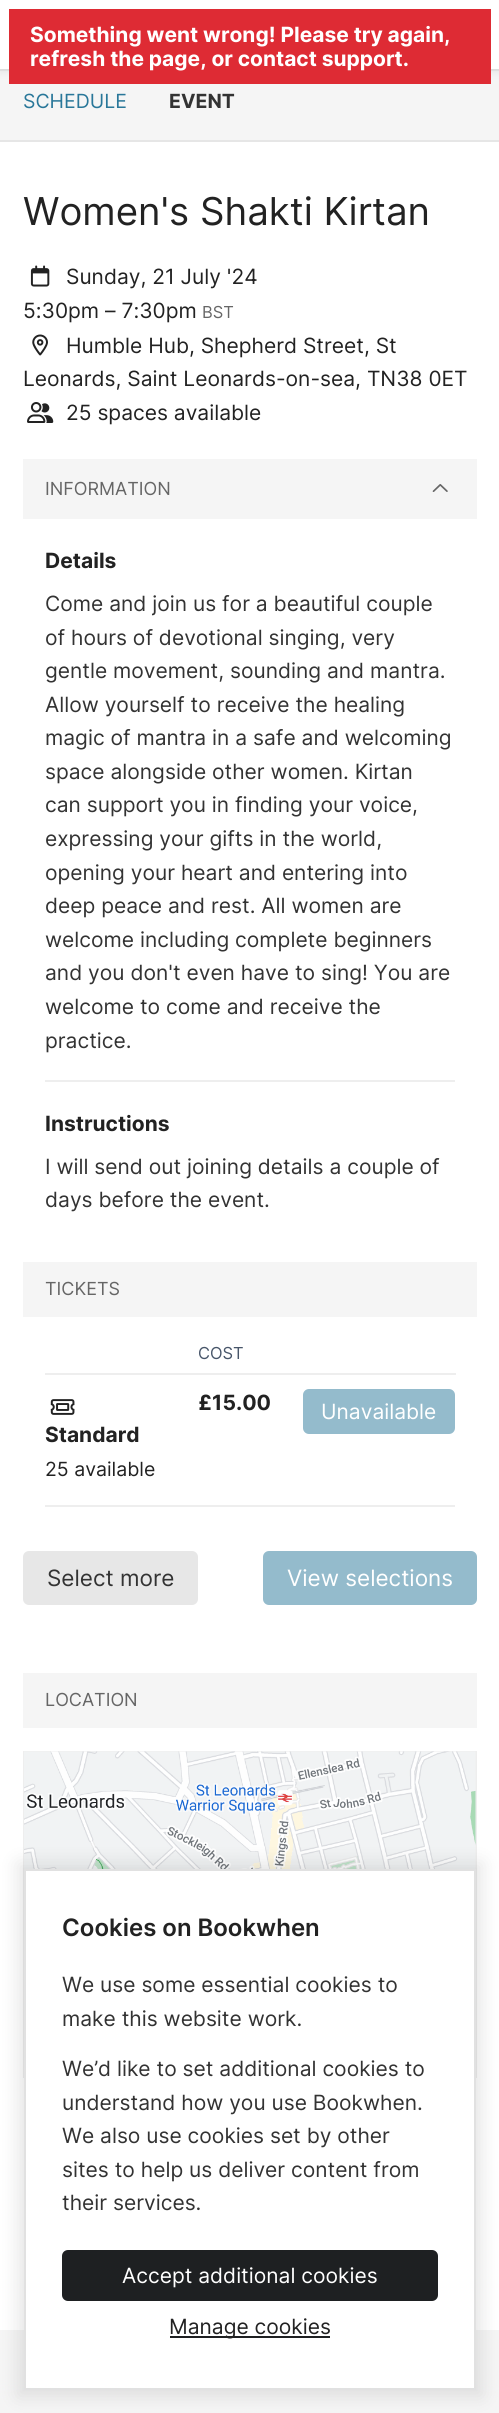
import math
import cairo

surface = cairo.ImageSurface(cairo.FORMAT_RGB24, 499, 2413)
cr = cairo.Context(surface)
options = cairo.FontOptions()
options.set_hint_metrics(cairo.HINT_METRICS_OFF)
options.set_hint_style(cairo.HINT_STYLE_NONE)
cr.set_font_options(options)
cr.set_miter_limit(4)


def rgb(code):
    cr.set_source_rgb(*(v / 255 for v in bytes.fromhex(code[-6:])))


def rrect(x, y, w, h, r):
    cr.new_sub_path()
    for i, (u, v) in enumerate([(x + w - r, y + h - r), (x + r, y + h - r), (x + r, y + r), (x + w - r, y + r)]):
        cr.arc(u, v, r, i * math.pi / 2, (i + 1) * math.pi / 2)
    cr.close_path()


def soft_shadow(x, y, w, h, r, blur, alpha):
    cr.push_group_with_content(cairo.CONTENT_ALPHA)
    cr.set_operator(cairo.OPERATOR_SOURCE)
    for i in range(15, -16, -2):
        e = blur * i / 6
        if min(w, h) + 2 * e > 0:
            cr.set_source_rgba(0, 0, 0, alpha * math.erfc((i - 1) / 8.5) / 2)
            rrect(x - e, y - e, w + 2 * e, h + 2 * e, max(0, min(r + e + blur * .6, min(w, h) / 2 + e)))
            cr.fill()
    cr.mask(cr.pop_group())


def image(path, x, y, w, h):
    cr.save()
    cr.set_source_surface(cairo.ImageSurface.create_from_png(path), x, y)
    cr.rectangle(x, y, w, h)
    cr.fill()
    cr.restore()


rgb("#ffffff")
cr.paint()
rgb("#f5f5f5")
cr.rectangle(0, 69, 499, 71)
cr.fill()
rgb("#323232")
soft_shadow(0, 2, 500, 69, 0, 4.5, 0.1)
cr.set_source_rgba(0.392, 0.392, 0.392, 0.1)
cr.new_path()
cr.move_to(0, 69)
cr.line_to(0, 71)
cr.line_to(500, 71)
cr.line_to(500, 2)
cr.line_to(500, 69)
cr.close_path()
cr.fill()
for x, y, w, h, color in [
    (0, 0, 499, 69, "#ffffff"),
    (9, 9, 482, 75, "#de2b34"),
    (0, 140, 499, 2, "#e6e6e6"),
]:
    rgb(color)
    cr.rectangle(x, y, w, h)
    cr.fill()
image("img/1.png", 30, 265, 20, 22)
image("img/2.png", 32, 334, 16, 22)
image("img/3.png", 27, 402, 27, 21)
rgb("#f5f5f5")
cr.rectangle(23, 459, 454, 60)
cr.fill()
image("img/4.png", 432, 484, 16, 8)
for x, y, w, h, color in [
    (45, 1080, 410, 2, "#eeeeee"),
    (23, 1262, 454, 55, "#f5f5f5"),
    (45, 1505, 410, 2, "#eeeeee"),
    (45, 1373, 411, 2, "#eeeeee"),
]:
    rgb(color)
    cr.rectangle(x, y, w, h)
    cr.fill()
rgb("#94bbcc")
rrect(303, 1389, 152, 45, 6)
cr.fill()
image("img/5.png", 50, 1399, 25, 16)
rgb("#e7e7e7")
rrect(23, 1551, 175, 54, 6)
cr.fill()
rgb("#94bbcc")
rrect(263, 1551, 214, 54, 6)
cr.fill()
rgb("#f5f5f5")
cr.rectangle(23, 1673, 454, 55)
cr.fill()
cr.rectangle(24, 1752, 452, 325)
rgb("#eeeeee")
cr.stroke()
image("img/6.png", 24, 1751, 452, 118)
rgb("#f5f5f5")
cr.rectangle(0, 2330, 499, 83)
cr.fill()
rgb("#000000")
soft_shadow(18, 1863, 464, 533, 0, 9, 0.1)
rgb("#ffffff")
cr.rectangle(25, 1870, 450, 519)
cr.fill_preserve()
rgb("#e1e1e1")
cr.stroke()
rgb("#1e2022")
rrect(62, 2250, 376, 51, 6)
cr.fill()
cr.rectangle(170, 2336, 160, 2)
cr.fill()
cr.select_font_face("Inter", cairo.FONT_SLANT_NORMAL, cairo.FONT_WEIGHT_BOLD)
cr.set_font_size(21)
rgb("#ffffff")
cr.move_to(30, 42)
cr.show_text("Something went wrong! Please try again,")
cr.move_to(30, 66)
cr.show_text("refresh the page, or contact support.")
cr.select_font_face("Inter")
cr.set_font_size(19.5)
rgb("#297799")
cr.move_to(23, 108)
cr.show_text("SCHEDULE")
cr.select_font_face("Inter", cairo.FONT_SLANT_NORMAL, cairo.FONT_WEIGHT_BOLD)
rgb("#333333")
cr.move_to(169, 108)
cr.show_text("EVENT")
cr.select_font_face("Inter")
cr.set_font_size(38.4)
rgb("#222222")
cr.move_to(23, 225)
cr.show_text("Women's Shakti Kirtan")
cr.set_font_size(21)
cr.move_to(66, 284)
cr.show_text("Sunday, 21 July '24")
cr.move_to(23, 318)
cr.show_text("5:30pm – 7:30pm")
cr.set_font_size(16.5)
rgb("#666666")
cr.move_to(202, 318)
cr.show_text("BST")
cr.set_font_size(21)
rgb("#222222")
for x, y, s in [
    (66, 353, "Humble Hub, Shepherd Street, St"),
    (23, 386, "Leonards, Saint Leonards-on-sea, TN38 0ET"),
    (66, 420, "25 spaces available"),
]:
    cr.move_to(x, y)
    cr.show_text(s)
cr.set_font_size(18)
rgb("#666666")
cr.move_to(45, 495)
cr.show_text("INFORMATION")
cr.select_font_face("Inter", cairo.FONT_SLANT_NORMAL, cairo.FONT_WEIGHT_BOLD)
cr.set_font_size(21)
rgb("#222222")
cr.move_to(45, 568)
cr.show_text("Details")
cr.select_font_face("Inter")
rgb("#333333")
for x, y, s in [
    (45, 611, "Come and join us for a beautiful couple"),
    (45, 645, "of hours of devotional singing, very"),
    (45, 678, "gentle movement, sounding and mantra."),
    (45, 712, "Allow yourself to receive the healing"),
    (45, 745, "magic of mantra in a safe and welcoming"),
    (45, 779, "space alongside other women. Kirtan"),
    (45, 812, "can support you in finding your voice,"),
    (45, 846, "expressing your gifts in the world,"),
    (45, 880, "opening your heart and entering into"),
    (45, 913, "deep peace and rest. All women are"),
    (45, 947, "welcome including complete beginners"),
    (45, 980, "and you don't even have to sing! You are"),
    (45, 1014, "welcome to come and receive the"),
    (45, 1048, "practice."),
]:
    cr.move_to(x, y)
    cr.show_text(s)
cr.select_font_face("Inter", cairo.FONT_SLANT_NORMAL, cairo.FONT_WEIGHT_BOLD)
rgb("#222222")
cr.move_to(45, 1131)
cr.show_text("Instructions")
cr.select_font_face("Inter")
rgb("#333333")
cr.move_to(45, 1174)
cr.show_text("I will send out joining details a couple of")
cr.move_to(45, 1207)
cr.show_text("days before the event.")
cr.set_font_size(18)
rgb("#666666")
cr.move_to(45, 1295)
cr.show_text("TICKETS")
cr.set_font_size(16.5)
rgb("#475569")
cr.move_to(198, 1359)
cr.show_text("COST")
cr.select_font_face("Inter", cairo.FONT_SLANT_NORMAL, cairo.FONT_WEIGHT_BOLD)
cr.set_font_size(21)
rgb("#222222")
cr.move_to(198, 1410)
cr.show_text("£15.00")
cr.select_font_face("Inter")
rgb("#ffffff")
cr.move_to(321, 1419)
cr.show_text("Unavailable")
cr.select_font_face("Inter", cairo.FONT_SLANT_NORMAL, cairo.FONT_WEIGHT_BOLD)
rgb("#222222")
cr.move_to(45, 1442)
cr.show_text("Standard")
cr.select_font_face("Inter")
cr.set_font_size(19.5)
cr.move_to(45, 1476)
cr.show_text("25 available")
cr.set_font_size(22.5)
rgb("#333333")
cr.move_to(47, 1586)
cr.show_text("Select more")
rgb("#ffffff")
cr.move_to(287, 1586)
cr.show_text("View selections")
cr.set_font_size(18)
rgb("#666666")
cr.move_to(45, 1706)
cr.show_text("LOCATION")
cr.select_font_face("Inter SemiBold")
cr.set_font_size(24)
rgb("#222222")
cr.move_to(62, 1936)
cr.show_text("Cookies on Bookwhen")
cr.select_font_face("Inter")
cr.set_font_size(21)
rgb("#333333")
for x, y, s in [
    (62, 1992, "We use some essential cookies to"),
    (62, 2026, "make this website work."),
    (62, 2076, "We’d like to set additional cookies to"),
    (62, 2110, "understand how you use Bookwhen."),
    (62, 2143, "We also use cookies set by other"),
    (62, 2177, "sites to help us deliver content from"),
    (62, 2210, "their services."),
]:
    cr.move_to(x, y)
    cr.show_text(s)
rgb("#ffffff")
cr.move_to(122, 2283)
cr.show_text("Accept additional cookies")
rgb("#222222")
cr.move_to(169, 2334)
cr.show_text("Manage cookies")
surface.write_to_png("page.png")
